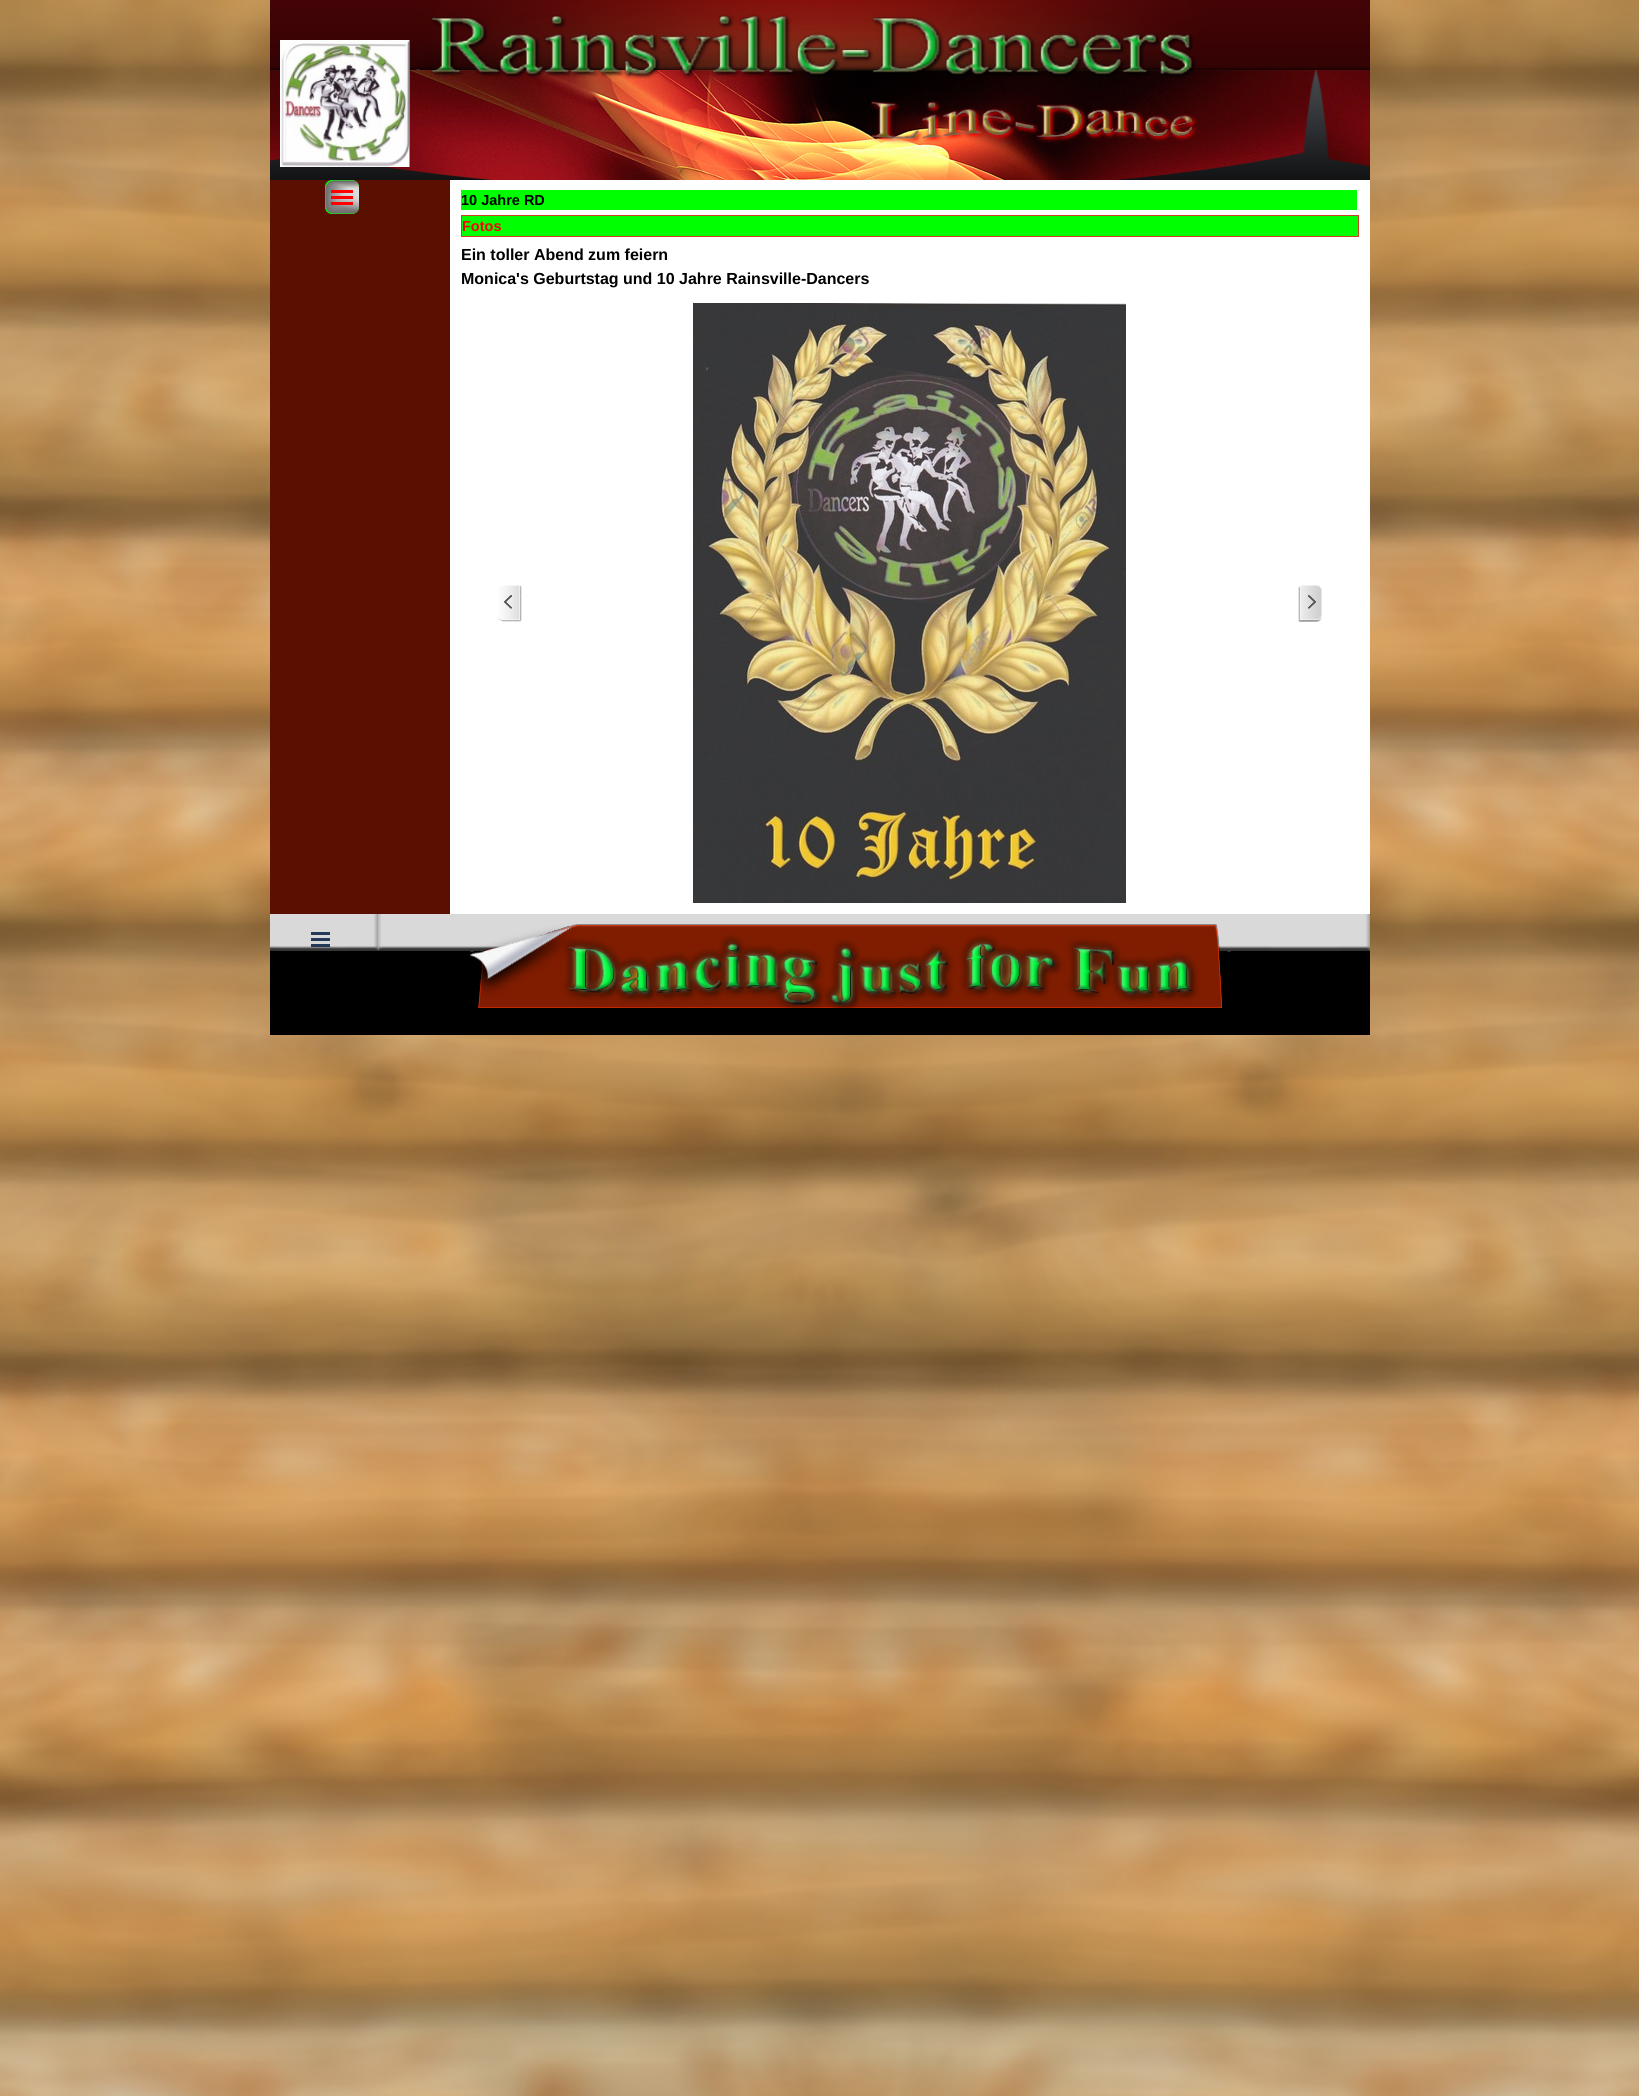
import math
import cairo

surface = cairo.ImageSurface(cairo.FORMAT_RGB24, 1639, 2096)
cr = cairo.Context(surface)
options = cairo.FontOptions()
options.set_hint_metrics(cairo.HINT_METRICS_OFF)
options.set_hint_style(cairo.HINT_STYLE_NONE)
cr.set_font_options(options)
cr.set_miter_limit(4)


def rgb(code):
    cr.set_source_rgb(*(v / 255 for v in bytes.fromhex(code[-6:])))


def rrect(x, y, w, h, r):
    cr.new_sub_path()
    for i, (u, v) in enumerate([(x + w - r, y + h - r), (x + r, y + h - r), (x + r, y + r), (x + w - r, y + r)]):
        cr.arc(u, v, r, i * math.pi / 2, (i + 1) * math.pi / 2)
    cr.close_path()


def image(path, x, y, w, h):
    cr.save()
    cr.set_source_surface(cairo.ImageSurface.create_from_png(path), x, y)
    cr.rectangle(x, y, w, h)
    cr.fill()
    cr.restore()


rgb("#ffffff")
cr.paint()
image("img/1.png", 0, 0, 1639, 2096)
image("img/2.png", 270, 0, 1100, 180)
image("img/3.png", 280, 40, 130, 127)
image("img/4.png", 431, 14, 765, 65)
image("img/5.png", 870, 100, 327, 44)
rgb("#5b0f00")
cr.rectangle(270, 180, 180, 734)
cr.fill()
rgb("#00ff00")
rrect(325, 180, 34, 34, 7)
cr.fill()
image("img/6.png", 325, 180, 34, 34)
for x, y, w, h, color in [
    (331, 190, 22, 3, "#ff0000"),
    (331, 196, 22, 3, "#ff0000"),
    (331, 202, 22, 3, "#ff0000"),
    (450, 180, 920, 734, "#ffffff"),
    (461, 190, 896, 20, "#00ff00"),
]:
    rgb(color)
    cr.rectangle(x, y, w, h)
    cr.fill()
cr.rectangle(461.5, 215.5, 897, 21)
cr.fill_preserve()
rgb("#cc4125")
cr.set_line_width(1)
cr.stroke()
image("img/7.png", 498, 585, 24, 37)
image("img/8.png", 693, 303, 433, 600)
image("img/9.png", 1298, 585, 24, 37)
image("img/10.png", 270, 914, 1100, 121)
for x, y, w, h, color in [
    (311, 932, 19, 3, "#253a58"),
    (311, 938, 19, 3, "#253a58"),
    (311, 944, 19, 3, "#253a58"),
]:
    rgb(color)
    cr.rectangle(x, y, w, h)
    cr.fill()
image("img/11.png", 563, 934, 636, 74)
cr.select_font_face("Liberation Sans", cairo.FONT_SLANT_NORMAL, cairo.FONT_WEIGHT_BOLD)
cr.set_font_size(14.5)
rgb("#000000")
cr.move_to(461, 205)
cr.show_text("10 Jahre RD")
rgb("#ff0000")
cr.move_to(462, 231)
cr.show_text("Fotos")
cr.set_font_size(16)
rgb("#000000")
cr.move_to(461, 260)
cr.show_text("Ein toller Abend zum feiern")
cr.move_to(461, 284)
cr.show_text("Monica's Geburtstag und 10 Jahre Rainsville-Dancers")
surface.write_to_png("page.png")
